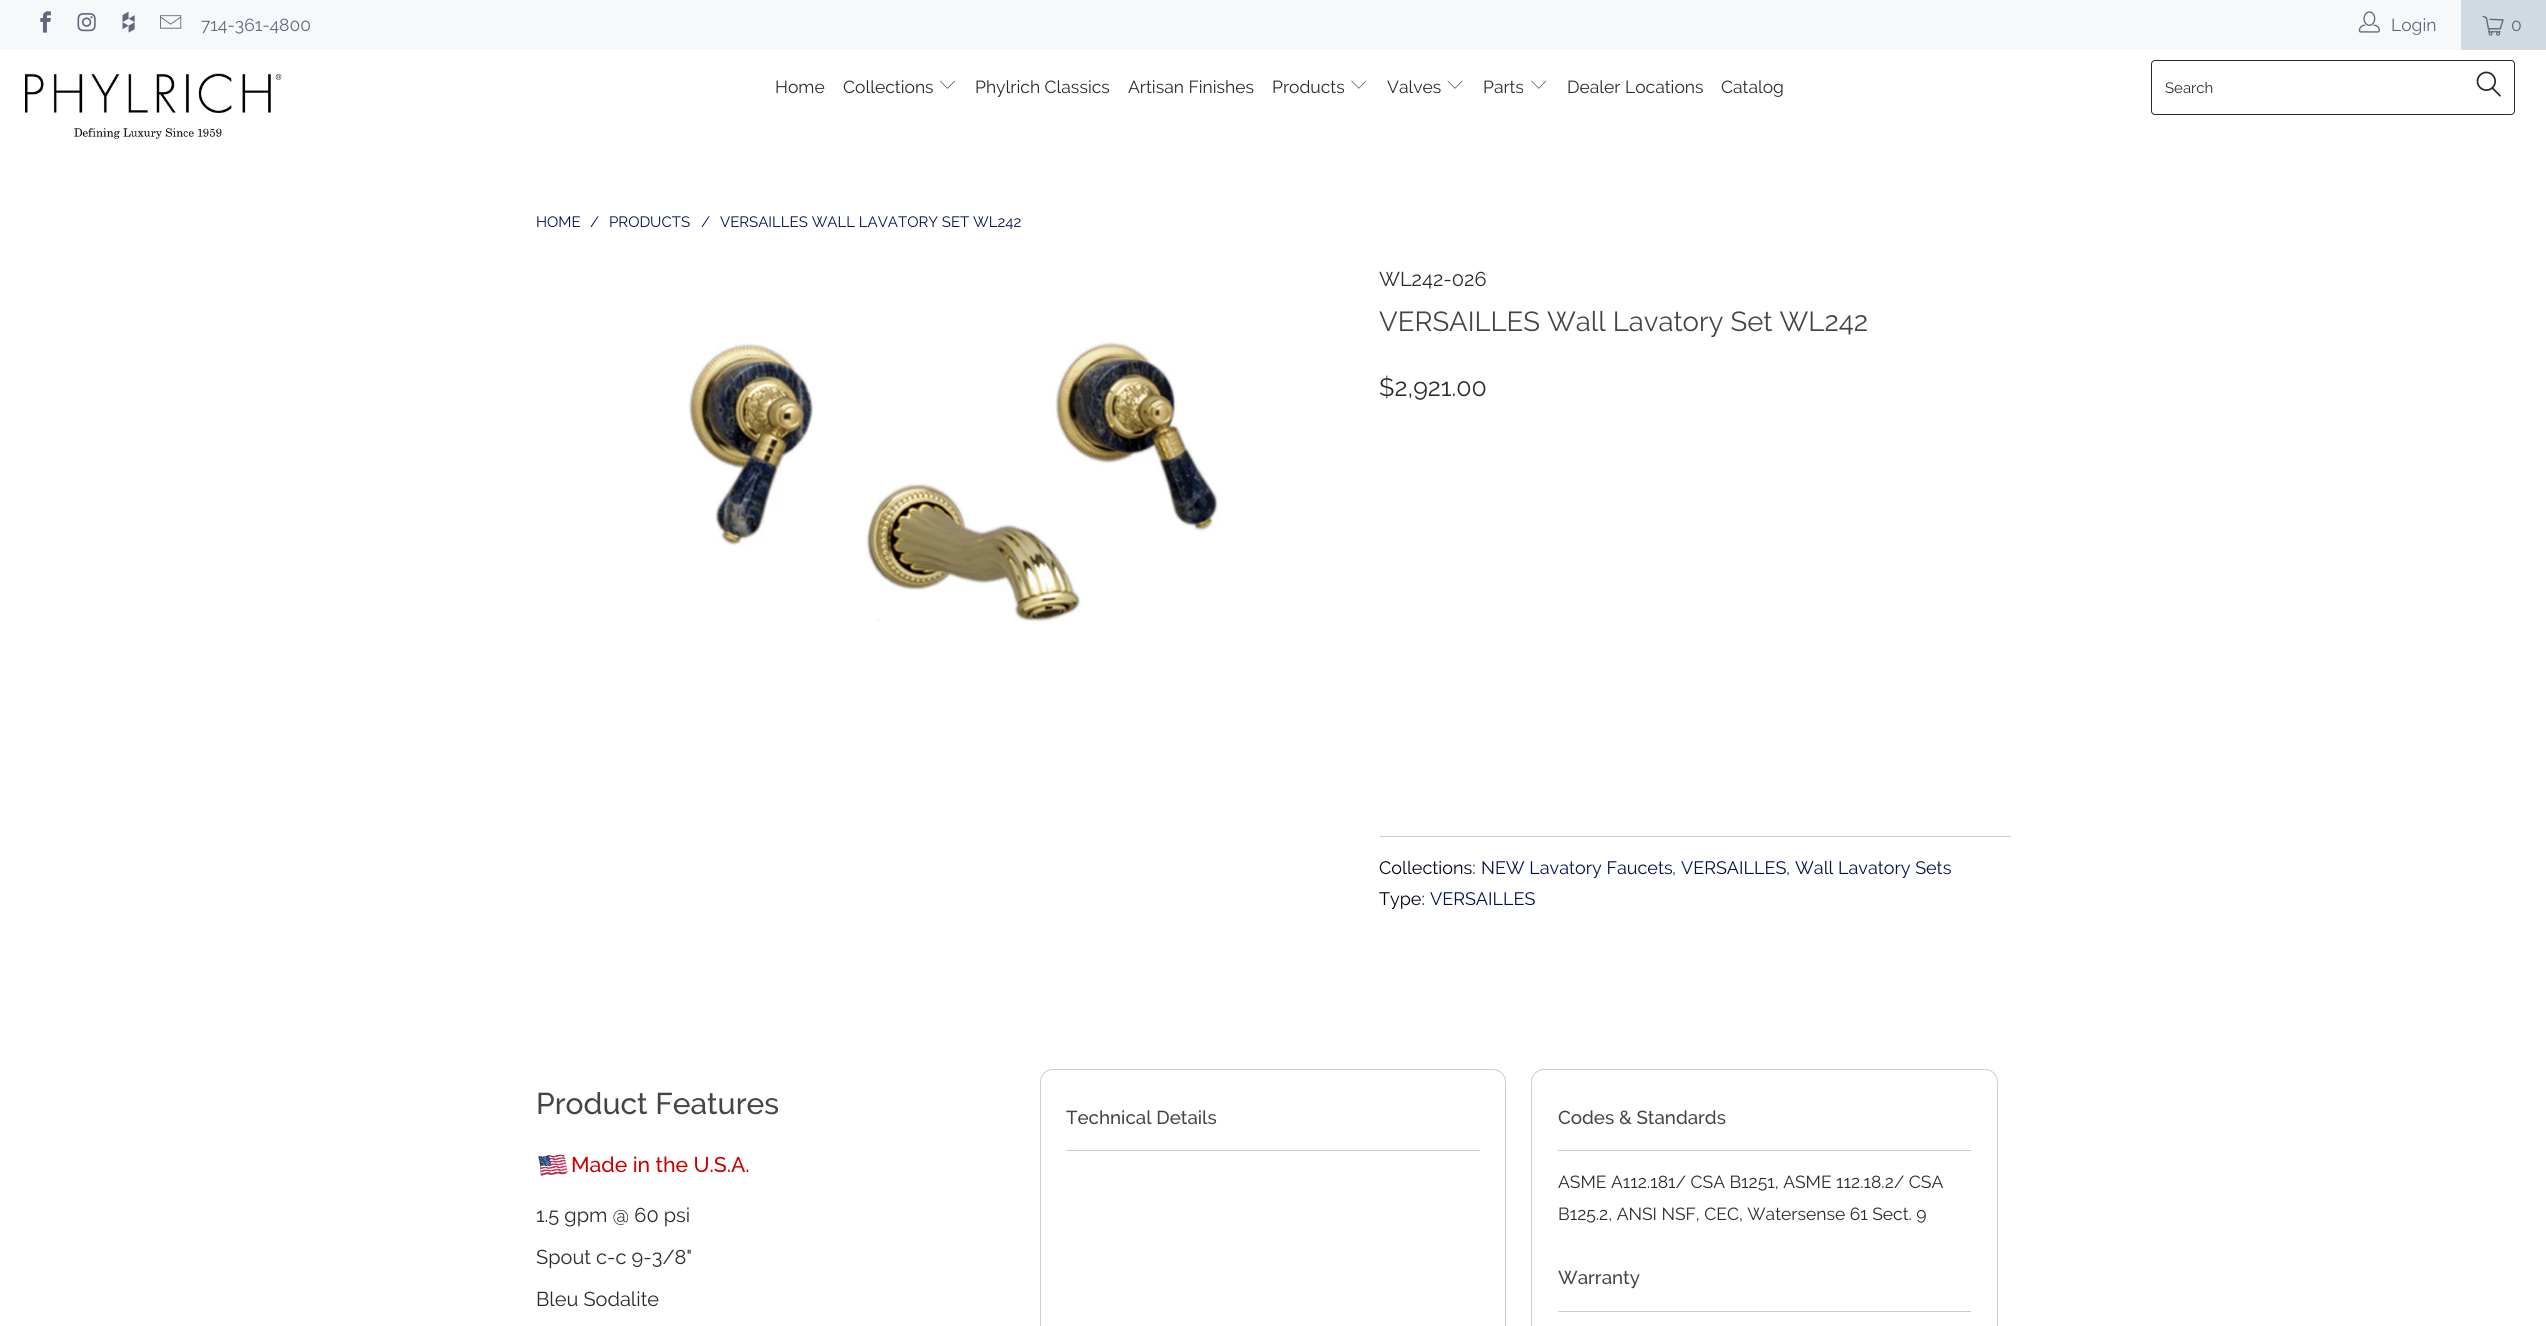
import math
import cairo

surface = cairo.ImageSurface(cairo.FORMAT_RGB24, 2546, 1326)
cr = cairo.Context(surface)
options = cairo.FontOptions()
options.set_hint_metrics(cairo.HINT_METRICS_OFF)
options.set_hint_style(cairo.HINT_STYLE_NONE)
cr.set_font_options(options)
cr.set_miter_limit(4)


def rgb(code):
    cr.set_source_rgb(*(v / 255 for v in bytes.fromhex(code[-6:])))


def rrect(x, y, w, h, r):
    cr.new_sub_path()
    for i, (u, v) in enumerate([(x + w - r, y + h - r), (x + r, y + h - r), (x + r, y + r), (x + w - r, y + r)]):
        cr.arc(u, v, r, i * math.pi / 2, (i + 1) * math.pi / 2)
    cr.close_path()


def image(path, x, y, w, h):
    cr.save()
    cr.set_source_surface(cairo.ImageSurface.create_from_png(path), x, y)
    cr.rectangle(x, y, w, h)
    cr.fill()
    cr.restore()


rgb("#ffffff")
cr.paint()
rgb("#f6f8fa")
cr.rectangle(0, 0, 2461, 50)
cr.fill()
image("img/1.png", 40, 11, 11, 22)
image("img/2.png", 77, 13, 19, 19)
image("img/3.png", 122, 11, 13, 22)
image("img/4.png", 160, 15, 22, 14)
image("img/5.png", 2358, 11, 22, 22)
rgb("#d1d9e1")
cr.rectangle(2461, 0, 85, 50)
cr.fill()
image("img/6.png", 2482, 15, 22, 21)
image("img/7.png", 25, 73, 257, 66)
image("img/8.png", 940, 80, 15, 9)
image("img/9.png", 1351, 80, 16, 9)
image("img/10.png", 1447, 80, 16, 9)
image("img/9.png", 1531, 80, 16, 9)
rrect(2151.5, 60.5, 363, 54, 3.5)
rgb("#2b2a2a")
cr.set_line_width(1)
cr.stroke()
image("img/11.png", 2476, 71, 25, 26)
image("img/12.png", 687, 341, 533, 284)
rgb("#cccccc")
cr.rectangle(1380, 836, 631, 1)
cr.fill()
image("img/13.png", 538, 1154, 30, 22)
rrect(1040.5, 1069.5, 465, 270, 12.5)
cr.stroke()
cr.rectangle(1066, 1150, 414, 1)
cr.fill()
rrect(1531.5, 1069.5, 466, 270, 12.5)
cr.stroke()
cr.rectangle(1558, 1150, 413, 1)
cr.fill()
cr.rectangle(1558, 1311, 413, 1)
cr.fill()
cr.select_font_face("Raleway")
cr.set_font_size(17.5)
rgb("#62677b")
for x, y, s in [
    (201, 31, "714-361-4800"),
    (2391, 31, "Login"),
    (2511, 31, "0"),
]:
    cr.move_to(x, y)
    cr.show_text(s)
rgb("#2b2a2a")
for x, y, s in [
    (775, 93, "Home"),
    (843, 93, "Collections"),
    (975, 93, "Phylrich Classics"),
    (1128, 93, "Artisan Finishes"),
    (1272, 93, "Products"),
    (1387, 93, "Valves"),
    (1483, 93, "Parts"),
    (1567, 93, "Dealer Locations"),
    (1721, 93, "Catalog"),
]:
    cr.move_to(x, y)
    cr.show_text(s)
cr.set_font_size(15)
cr.move_to(2165, 93)
cr.show_text("Search")
rgb("#020f4c")
for x, y, s in [
    (536, 227, "HOME"),
    (590, 227, "/"),
    (609, 227, "PRODUCTS"),
    (701, 227, "/"),
    (720, 227, "VERSAILLES WALL LAVATORY SET WL242"),
]:
    cr.move_to(x, y)
    cr.show_text(s)
cr.set_font_size(20)
rgb("#2b2a2a")
cr.move_to(1379, 286)
cr.show_text("WL242-026")
cr.set_font_size(27.5)
rgb("#454545")
cr.move_to(1379, 331)
cr.show_text("VERSAILLES Wall Lavatory Set WL242")
cr.set_font_size(25)
rgb("#2b2a2a")
cr.move_to(1379, 396)
cr.show_text("$2,921.00")
cr.set_font_size(18)
rgb("#010315")
cr.move_to(1379, 874)
cr.show_text("Collections:")
rgb("#020f4c")
cr.move_to(1481, 874)
cr.show_text("NEW Lavatory Faucets")
rgb("#2b2a2a")
cr.move_to(1672, 874)
cr.show_text(",")
rgb("#020f4c")
cr.move_to(1681, 874)
cr.show_text("VERSAILLES")
rgb("#2b2a2a")
cr.move_to(1786, 874)
cr.show_text(",")
rgb("#020f4c")
cr.move_to(1795, 874)
cr.show_text("Wall Lavatory Sets")
rgb("#010315")
cr.move_to(1379, 905)
cr.show_text("Type:")
rgb("#020f4c")
cr.move_to(1430, 905)
cr.show_text("VERSAILLES")
cr.select_font_face("Raleway Medium")
cr.set_font_size(30)
rgb("#454545")
cr.move_to(536, 1114)
cr.show_text("Product Features")
cr.set_font_size(21.25)
rgb("#cc0000")
cr.move_to(571, 1172)
cr.show_text("Made in the U.S.A.")
cr.select_font_face("Raleway")
cr.set_font_size(20)
rgb("#2b2a2a")
for x, y, s in [
    (536, 1222, "1.5 gpm @ 60 psi"),
    (536, 1264, "Spout c-c 9-3/8\""),
    (536, 1306, "Bleu Sodalite"),
]:
    cr.move_to(x, y)
    cr.show_text(s)
cr.select_font_face("Raleway Medium")
cr.set_font_size(18.75)
rgb("#454545")
cr.move_to(1066, 1124)
cr.show_text("Technical Details")
cr.move_to(1558, 1124)
cr.show_text("Codes & Standards")
cr.select_font_face("Raleway")
cr.set_font_size(17.5)
rgb("#2b2a2a")
cr.move_to(1558, 1188)
cr.show_text("ASME A112.181/ CSA B1251, ASME 112.18.2/ CSA")
cr.move_to(1558, 1220)
cr.show_text("B125.2, ANSI NSF, CEC, Watersense 61 Sect. 9")
cr.select_font_face("Raleway Medium")
cr.set_font_size(18.75)
rgb("#454545")
cr.move_to(1558, 1284)
cr.show_text("Warranty")
surface.write_to_png("page.png")
